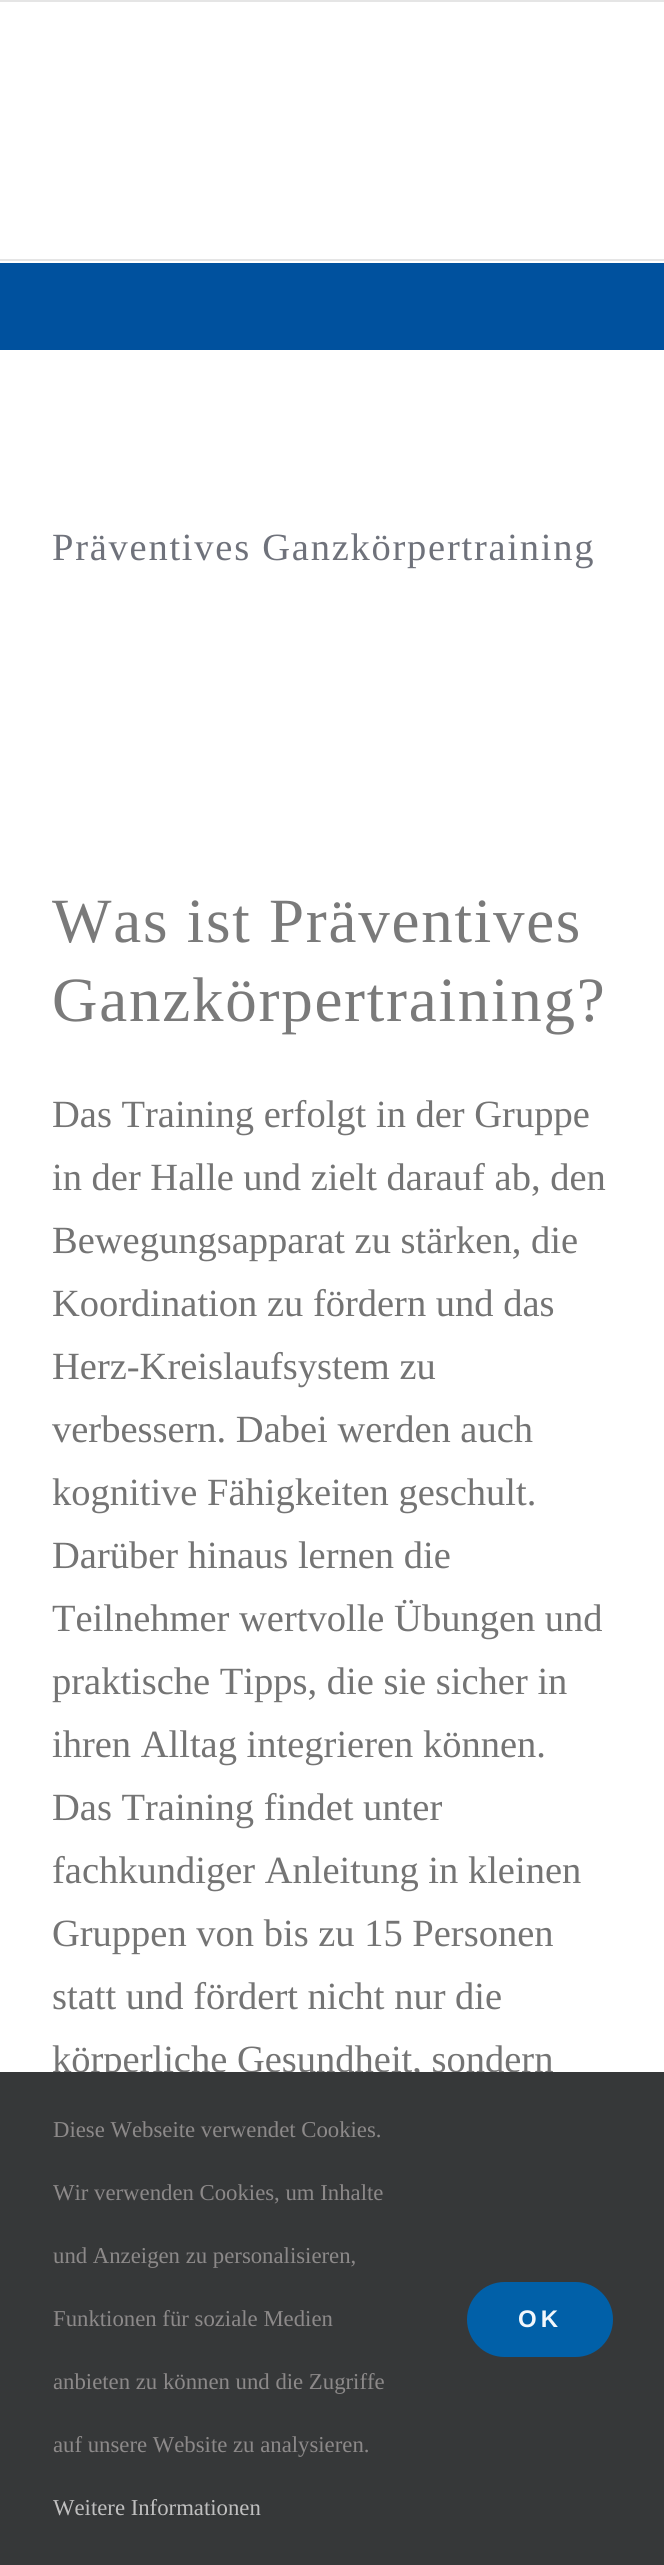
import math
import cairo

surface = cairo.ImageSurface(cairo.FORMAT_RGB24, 664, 2565)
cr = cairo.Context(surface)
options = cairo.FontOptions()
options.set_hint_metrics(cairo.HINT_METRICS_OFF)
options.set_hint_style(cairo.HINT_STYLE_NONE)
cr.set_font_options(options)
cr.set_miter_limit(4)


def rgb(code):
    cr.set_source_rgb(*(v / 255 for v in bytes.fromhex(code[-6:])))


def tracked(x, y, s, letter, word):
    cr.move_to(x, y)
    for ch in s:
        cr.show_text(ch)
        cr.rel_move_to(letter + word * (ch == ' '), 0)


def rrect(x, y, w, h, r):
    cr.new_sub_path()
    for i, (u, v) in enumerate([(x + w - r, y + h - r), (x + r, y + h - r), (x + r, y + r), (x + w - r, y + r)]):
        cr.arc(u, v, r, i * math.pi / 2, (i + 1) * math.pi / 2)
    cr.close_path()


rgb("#00519e")
cr.paint()
for x, y, w, h, color in [
    (0, 0, 664, 2, "#e5e5e5"),
    (0, 2, 664, 257, "#ffffff"),
    (0, 259, 664, 2, "#e5e5e5"),
    (0, 261, 664, 2, "#ffffff"),
    (0, 350, 664, 1722, "#ffffff"),
]:
    rgb(color)
    cr.rectangle(x, y, w, h)
    cr.fill()
cr.select_font_face("Liberation Serif")
cr.set_font_size(38.5)
rgb("#6f727b")
tracked(52, 560, "Präventives Ganzkörpertraining", 1.75, 0)
cr.set_font_size(63)
rgb("#7a7a7a")
tracked(52, 942, "Was ist Präventives", 1.75, 0)
tracked(52, 1021, "Ganzkörpertraining?", 1.75, 0)
cr.set_font_size(38.5)
rgb("#747474")
for x, y, s in [
    (52, 1127, "Das Training erfolgt in der Gruppe"),
    (52, 1190, "in der Halle und zielt darauf ab, den"),
    (52, 1253, "Bewegungsapparat zu stärken, die"),
    (52, 1316, "Koordination zu fördern und das"),
    (52, 1379, "Herz-Kreislaufsystem zu"),
    (52, 1442, "verbessern. Dabei werden auch"),
    (52, 1505, "kognitive Fähigkeiten geschult."),
    (52, 1568, "Darüber hinaus lernen die"),
    (52, 1631, "Teilnehmer wertvolle Übungen und"),
    (52, 1694, "praktische Tipps, die sie sicher in"),
    (52, 1757, "ihren Alltag integrieren können."),
    (52, 1820, "Das Training findet unter"),
    (52, 1883, "fachkundiger Anleitung in kleinen"),
    (52, 1946, "Gruppen von bis zu 15 Personen"),
    (52, 2009, "statt und fördert nicht nur die"),
    (52, 2072, "körperliche Gesundheit, sondern"),
]:
    cr.move_to(x, y)
    cr.show_text(s)
rgb("#363839")
cr.rectangle(0, 2072, 664, 493)
cr.fill()
cr.set_font_size(22.75)
rgb("#8c8989")
for x, y, s in [
    (53, 2137, "Diese Webseite verwendet Cookies."),
    (53, 2200, "Wir verwenden Cookies, um Inhalte"),
    (53, 2263, "und Anzeigen zu personalisieren,"),
    (53, 2326, "Funktionen für soziale Medien"),
    (53, 2389, "anbieten zu können und die Zugriffe"),
    (53, 2452, "auf unsere Website zu analysieren."),
]:
    cr.move_to(x, y)
    cr.show_text(s)
rgb("#bfbfbf")
cr.move_to(53, 2515)
cr.show_text("Weitere Informationen")
rgb("#0160a8")
rrect(467, 2282, 146, 75, 37.5)
cr.fill()
cr.select_font_face("Liberation Sans", cairo.FONT_SLANT_NORMAL, cairo.FONT_WEIGHT_BOLD)
cr.set_font_size(24)
rgb("#f2f7fb")
tracked(518, 2327, "OK", 4, 0)
surface.write_to_png("page.png")
